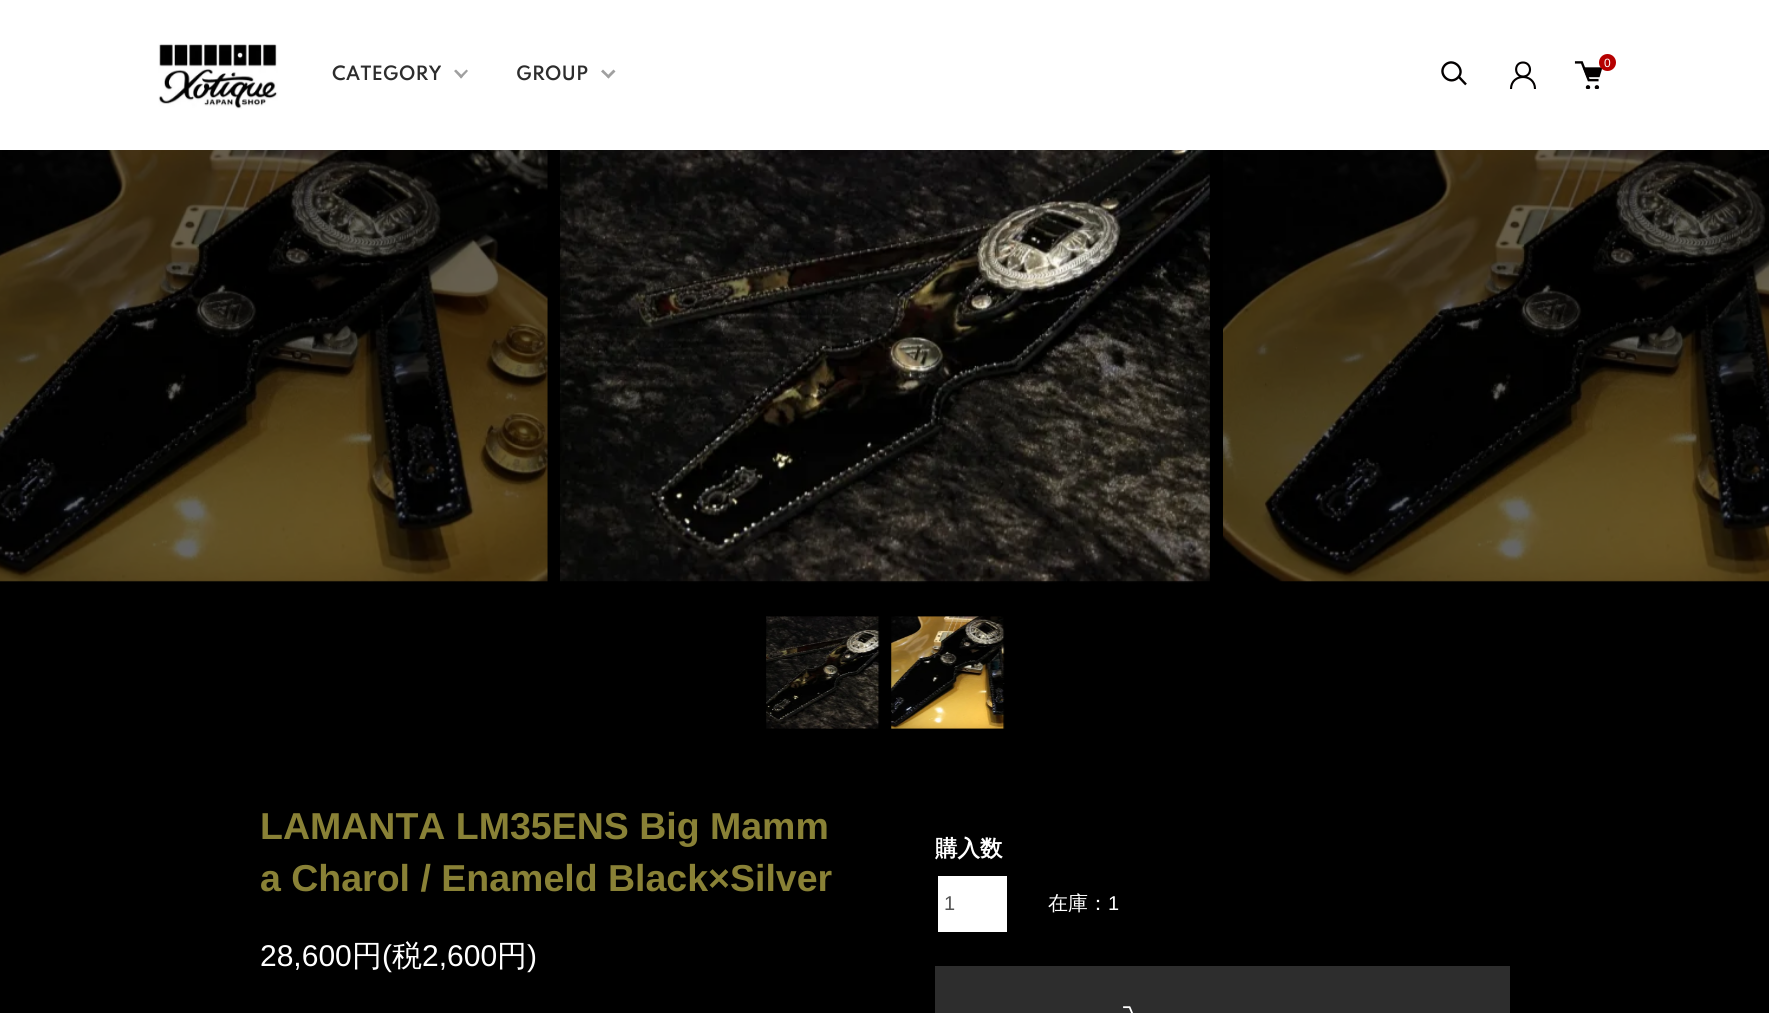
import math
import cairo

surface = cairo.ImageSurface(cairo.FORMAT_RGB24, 1769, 1013)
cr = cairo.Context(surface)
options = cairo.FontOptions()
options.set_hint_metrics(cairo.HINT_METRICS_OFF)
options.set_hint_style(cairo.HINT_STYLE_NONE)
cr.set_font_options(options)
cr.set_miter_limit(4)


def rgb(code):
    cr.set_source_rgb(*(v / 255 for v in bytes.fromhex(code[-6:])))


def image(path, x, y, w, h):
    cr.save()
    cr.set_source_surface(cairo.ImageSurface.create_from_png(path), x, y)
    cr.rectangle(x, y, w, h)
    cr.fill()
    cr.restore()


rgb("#000000")
cr.paint()
rgb("#ffffff")
cr.rectangle(0, 0, 1769, 150)
cr.fill()
image("img/1.png", 158, 43, 120, 66)
cr.new_path()
cr.move_to(1445, 65)
cr.curve_to(1453.5, 57, 1466, 69.5, 1458, 77.5)
cr.curve_to(1449.5, 86, 1437, 73.5, 1445, 65)
cr.close_path()
cr.move_to(1458, 76)
cr.line_to(1466, 84.5)
rgb("#030000")
cr.set_line_width(2.4)
cr.stroke()
cr.new_path()
cr.move_to(1523, 62.5)
cr.curve_to(1532, 62.5, 1532.5, 76, 1523.5, 76.5)
cr.curve_to(1514, 77, 1513.5, 62.5, 1523, 62.5)
cr.close_path()
cr.move_to(1511, 89)
cr.curve_to(1511, 73, 1535, 73, 1535, 89)
cr.set_line_width(2.1)
cr.stroke()
image("img/2.png", 1574, 61, 28, 28)
rgb("#b60000")
cr.arc(1607.5, 62.5, 8.5, 0, 2 * math.pi)
cr.fill()
rgb("#a0a0a0")
cr.new_path()
cr.move_to(466.5, 69.5)
cr.line_to(468, 71)
cr.line_to(461, 78.5)
cr.line_to(459.5, 76.5)
cr.close_path()
cr.fill()
cr.new_path()
cr.move_to(456, 69.5)
cr.line_to(463, 76.5)
cr.line_to(461, 78.5)
cr.line_to(454, 71)
cr.close_path()
cr.fill()
cr.new_path()
cr.move_to(613.5, 69.5)
cr.line_to(615.5, 71.5)
cr.line_to(608.5, 78.5)
cr.line_to(606.5, 76.5)
cr.close_path()
cr.fill()
cr.new_path()
cr.move_to(603, 69.5)
cr.line_to(610, 76.5)
cr.line_to(608.5, 78.5)
cr.line_to(601, 71.5)
cr.close_path()
cr.fill()
image("img/3.png", 0, 150, 548, 432)
image("img/4.png", 560, 150, 650, 433)
image("img/5.png", 1223, 150, 546, 432)
image("img/6.png", 766, 616, 114, 113)
image("img/7.png", 891, 616, 114, 113)
rgb("#ffffff")
cr.rectangle(938, 876, 69, 56)
cr.fill()
rgb("#2d2d2d")
cr.rectangle(935, 966, 575, 47)
cr.fill()
image("img/8.png", 1123, 1006, 10, 7)
cr.select_font_face("Liberation Sans")
cr.set_font_size(12)
rgb("#ffffff")
cr.move_to(1604, 67)
cr.show_text("0")
cr.select_font_face("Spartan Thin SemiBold")
cr.set_font_size(17.5)
rgb("#2d2d2d")
cr.move_to(332, 80)
cr.show_text("CATEGORY")
cr.move_to(516, 80)
cr.show_text("GROUP")
cr.select_font_face("Liberation Sans", cairo.FONT_SLANT_NORMAL, cairo.FONT_WEIGHT_BOLD)
cr.set_font_size(37.5)
rgb("#898136")
cr.move_to(260, 839)
cr.show_text("LAMANTA LM35ENS Big Mamm")
cr.move_to(260, 891)
cr.show_text("a Charol / Enameld Black×Silver")
cr.select_font_face("Liberation Sans")
cr.set_font_size(30)
rgb("#ffffff")
cr.move_to(260, 966)
cr.show_text("28,600")
cr.select_font_face("WenQuanYi Zen Hei Medium")
cr.move_to(352, 966)
cr.show_text("円")
cr.select_font_face("Liberation Sans")
cr.move_to(382, 966)
cr.show_text("(")
cr.select_font_face("WenQuanYi Zen Hei Medium")
cr.move_to(392, 966)
cr.show_text("税")
cr.select_font_face("Liberation Sans")
cr.move_to(422, 966)
cr.show_text("2,600")
cr.select_font_face("WenQuanYi Zen Hei Medium")
cr.move_to(497, 966)
cr.show_text("円")
cr.select_font_face("Liberation Sans")
cr.move_to(527, 966)
cr.show_text(")")
cr.select_font_face("WenQuanYi Zen Hei", cairo.FONT_SLANT_NORMAL, cairo.FONT_WEIGHT_BOLD)
cr.set_font_size(22.5)
cr.move_to(935, 856)
cr.show_text("購入数")
cr.select_font_face("Liberation Sans")
cr.set_font_size(20)
rgb("#555555")
cr.move_to(944, 910)
cr.show_text("1")
cr.select_font_face("WenQuanYi Zen Hei Medium")
rgb("#ffffff")
cr.move_to(1048, 910)
cr.show_text("在庫：")
cr.select_font_face("Liberation Sans")
cr.move_to(1108, 910)
cr.show_text("1")
surface.write_to_png("page.png")
